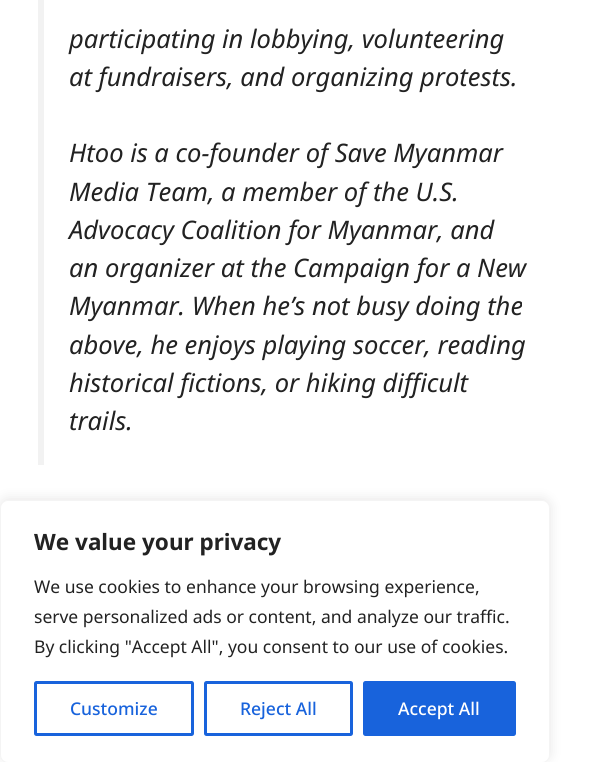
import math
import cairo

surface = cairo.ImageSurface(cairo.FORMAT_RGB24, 591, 762)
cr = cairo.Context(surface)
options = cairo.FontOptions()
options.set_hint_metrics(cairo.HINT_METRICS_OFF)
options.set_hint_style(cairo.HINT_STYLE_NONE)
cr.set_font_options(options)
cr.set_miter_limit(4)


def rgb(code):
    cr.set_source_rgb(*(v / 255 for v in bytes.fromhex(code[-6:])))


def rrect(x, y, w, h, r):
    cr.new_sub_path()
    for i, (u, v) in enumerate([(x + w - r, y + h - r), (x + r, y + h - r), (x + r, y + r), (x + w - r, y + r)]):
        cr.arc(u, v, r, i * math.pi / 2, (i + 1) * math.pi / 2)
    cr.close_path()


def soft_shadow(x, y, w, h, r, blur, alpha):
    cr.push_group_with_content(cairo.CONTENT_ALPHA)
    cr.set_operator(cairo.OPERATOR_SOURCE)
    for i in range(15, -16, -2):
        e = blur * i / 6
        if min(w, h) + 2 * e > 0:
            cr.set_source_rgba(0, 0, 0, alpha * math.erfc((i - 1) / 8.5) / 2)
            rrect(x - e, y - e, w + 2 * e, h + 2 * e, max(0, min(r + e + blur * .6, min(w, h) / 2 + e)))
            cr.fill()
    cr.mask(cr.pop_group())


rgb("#ffffff")
cr.paint()
rgb("#f2f2f2")
cr.rectangle(38, 0, 6, 465)
cr.fill()
rgb("#acabab")
soft_shadow(0, 499, 550, 262, 8, 6, 0.3)
rgb("#ffffff")
rrect(0.5, 500.5, 549, 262, 7.5)
cr.fill_preserve()
rgb("#f4f4f4")
cr.set_line_width(1)
cr.stroke()
rrect(35.5, 682.5, 157, 52, 1)
rgb("#1863dc")
cr.set_line_width(3)
cr.stroke()
rrect(205.5, 682.5, 146, 52, 1)
cr.stroke()
rrect(364.5, 682.5, 150, 52, 1)
cr.fill_preserve()
cr.stroke()
cr.select_font_face("Noto Sans", cairo.FONT_SLANT_ITALIC)
cr.set_font_size(25.5)
rgb("#222222")
for x, y, s in [
    (69, 48, "participating in lobbying, volunteering"),
    (69, 86, "at fundraisers, and organizing protests."),
    (69, 162, "Htoo is a co-founder of Save Myanmar"),
    (69, 201, "Media Team, a member of the U.S."),
    (69, 239, "Advocacy Coalition for Myanmar, and"),
    (69, 277, "an organizer at the Campaign for a New"),
    (69, 315, "Myanmar. When he’s not busy doing the"),
    (69, 354, "above, he enjoys playing soccer, reading"),
    (69, 392, "historical fictions, or hiking difficult"),
    (69, 430, "trails."),
]:
    cr.move_to(x, y)
    cr.show_text(s)
cr.select_font_face("Noto Sans", cairo.FONT_SLANT_NORMAL, cairo.FONT_WEIGHT_BOLD)
cr.set_font_size(22.5)
cr.move_to(34, 550)
cr.show_text("We value your privacy")
cr.select_font_face("Noto Sans")
cr.set_font_size(17.5)
for x, y, s in [
    (34, 593, "We use cookies to enhance your browsing experience,"),
    (34, 623, "serve personalized ads or content, and analyze our traffic."),
    (34, 653, "By clicking \"Accept All\", you consent to our use of cookies."),
]:
    cr.move_to(x, y)
    cr.show_text(s)
cr.select_font_face("Noto Sans Medium")
rgb("#1863dc")
cr.move_to(70, 715)
cr.show_text("Customize")
cr.move_to(240, 715)
cr.show_text("Reject All")
rgb("#ffffff")
cr.move_to(398, 715)
cr.show_text("Accept All")
surface.write_to_png("page.png")
